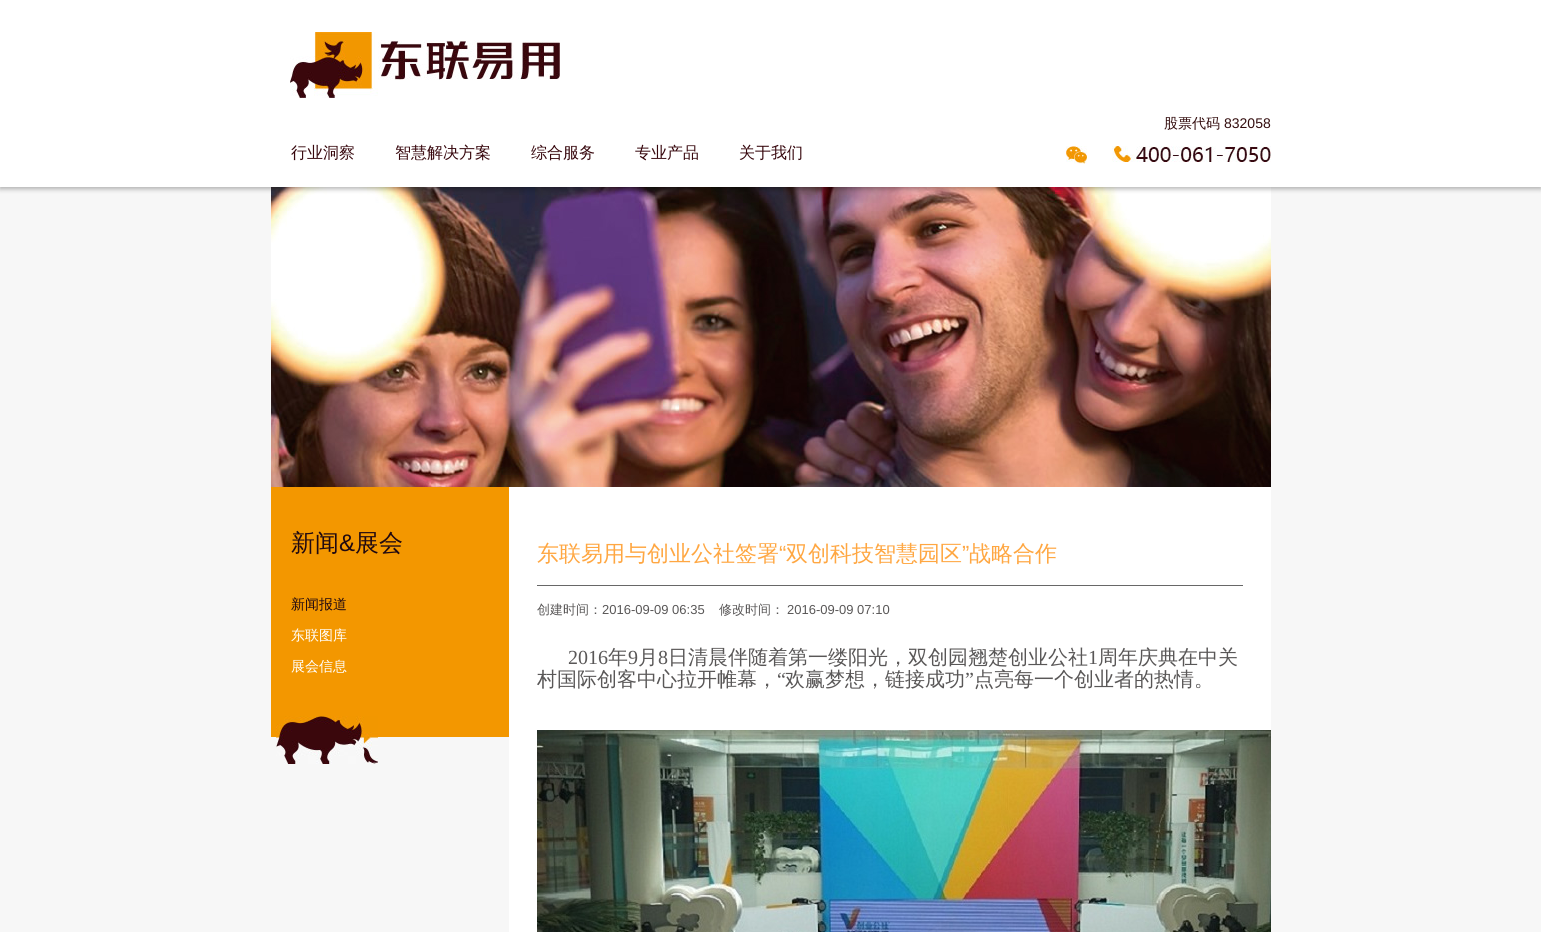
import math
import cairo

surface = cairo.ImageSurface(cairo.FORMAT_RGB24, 1541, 932)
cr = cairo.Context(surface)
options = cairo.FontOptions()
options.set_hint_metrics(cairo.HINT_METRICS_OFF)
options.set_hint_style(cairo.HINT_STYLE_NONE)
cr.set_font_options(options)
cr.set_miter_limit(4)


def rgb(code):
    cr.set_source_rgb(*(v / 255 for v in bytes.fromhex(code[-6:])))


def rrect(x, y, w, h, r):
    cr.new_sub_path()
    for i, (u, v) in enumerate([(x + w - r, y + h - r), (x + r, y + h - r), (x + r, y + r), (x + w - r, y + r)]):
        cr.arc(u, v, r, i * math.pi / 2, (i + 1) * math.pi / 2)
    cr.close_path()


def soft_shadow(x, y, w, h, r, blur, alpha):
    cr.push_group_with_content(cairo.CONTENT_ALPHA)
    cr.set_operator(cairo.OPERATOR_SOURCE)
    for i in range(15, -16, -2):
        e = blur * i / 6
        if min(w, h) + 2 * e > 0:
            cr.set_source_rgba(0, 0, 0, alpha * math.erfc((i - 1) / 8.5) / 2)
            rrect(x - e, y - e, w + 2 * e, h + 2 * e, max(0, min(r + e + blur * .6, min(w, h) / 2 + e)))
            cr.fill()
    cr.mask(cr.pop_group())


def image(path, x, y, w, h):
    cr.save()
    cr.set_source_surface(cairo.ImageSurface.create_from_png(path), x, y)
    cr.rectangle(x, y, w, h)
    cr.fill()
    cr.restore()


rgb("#f7f7f7")
cr.paint()
image("img/4.png", 271, 187, 1000, 300)
rgb("#000000")
soft_shadow(0, 2, 1541, 187, 0, 2.5, 0.3)
rgb("#ffffff")
cr.rectangle(0, 0, 1541, 187)
cr.fill()
image("img/1.png", 290, 32, 270, 66)
image("img/2.png", 1066, 146, 21, 18)
image("img/3.png", 1112, 146, 159, 16)
rgb("#f39700")
cr.rectangle(271, 487, 238, 250)
cr.fill()
image("img/5.png", 276, 716, 102, 48)
rgb("#ffffff")
cr.rectangle(509, 487, 762, 445)
cr.fill()
rgb("#676767")
cr.rectangle(537, 585, 706, 1)
cr.fill()
image("img/6.png", 537, 730, 734, 202)
cr.select_font_face("WenQuanYi Zen Hei Medium")
cr.set_font_size(14)
rgb("#330d0e")
cr.move_to(1164, 128)
cr.show_text("股票代码")
cr.select_font_face("Liberation Sans")
cr.move_to(1224, 128)
cr.show_text("832058")
cr.select_font_face("WenQuanYi Zen Hei Medium")
cr.set_font_size(16)
rgb("#37070d")
for x, y, s in [
    (291, 158, "行业洞察"),
    (395, 158, "智慧解决方案"),
    (531, 158, "综合服务"),
    (635, 158, "专业产品"),
    (739, 158, "关于我们"),
]:
    cr.move_to(x, y)
    cr.show_text(s)
cr.set_font_size(24)
rgb("#200911")
cr.move_to(291, 551)
cr.show_text("新闻")
cr.select_font_face("Liberation Sans")
cr.move_to(339, 551)
cr.show_text("&")
cr.select_font_face("WenQuanYi Zen Hei Medium")
cr.move_to(355, 551)
cr.show_text("展会")
cr.set_font_size(14)
cr.move_to(291, 609)
cr.show_text("新闻报道")
rgb("#ffffff")
cr.move_to(291, 640)
cr.show_text("东联图库")
cr.move_to(291, 671)
cr.show_text("展会信息")
cr.set_font_size(22)
rgb("#ffa742")
cr.move_to(537, 561)
cr.show_text("东联易用与创业公社签署")
cr.select_font_face("Liberation Sans")
cr.move_to(779, 561)
cr.show_text("“")
cr.select_font_face("WenQuanYi Zen Hei Medium")
cr.move_to(786, 561)
cr.show_text("双创科技智慧园区")
cr.select_font_face("Liberation Sans")
cr.move_to(962, 561)
cr.show_text("”")
cr.select_font_face("WenQuanYi Zen Hei Medium")
cr.move_to(969, 561)
cr.show_text("战略合作")
cr.set_font_size(13)
rgb("#595757")
cr.move_to(537, 614)
cr.show_text("创建时间：")
cr.select_font_face("Liberation Sans")
cr.move_to(602, 614)
cr.show_text("2016-09-09 06:35")
cr.select_font_face("WenQuanYi Zen Hei Medium")
cr.move_to(719, 614)
cr.show_text("修改时间：")
cr.select_font_face("Liberation Sans")
cr.move_to(787, 614)
cr.show_text("2016-09-09 07:10")
cr.select_font_face("Liberation Serif")
cr.set_font_size(20)
cr.move_to(568, 664)
cr.show_text("2016")
cr.select_font_face("WenQuanYi Zen Hei Medium")
cr.move_to(608, 664)
cr.show_text("年")
cr.select_font_face("Liberation Serif")
cr.move_to(628, 664)
cr.show_text("9")
cr.select_font_face("WenQuanYi Zen Hei Medium")
cr.move_to(638, 664)
cr.show_text("月")
cr.select_font_face("Liberation Serif")
cr.move_to(658, 664)
cr.show_text("8")
cr.select_font_face("WenQuanYi Zen Hei Medium")
cr.move_to(668, 664)
cr.show_text("日清晨伴随着第一缕阳光，双创园翘楚创业公社")
cr.select_font_face("Liberation Serif")
cr.move_to(1088, 664)
cr.show_text("1")
cr.select_font_face("WenQuanYi Zen Hei Medium")
cr.move_to(1098, 664)
cr.show_text("周年庆典在中关")
cr.move_to(537, 686)
cr.show_text("村国际创客中心拉开帷幕，")
cr.select_font_face("Liberation Serif")
cr.move_to(777, 686)
cr.show_text("“")
cr.select_font_face("WenQuanYi Zen Hei Medium")
cr.move_to(785, 686)
cr.show_text("欢赢梦想，链接成功")
cr.select_font_face("Liberation Serif")
cr.move_to(965, 686)
cr.show_text("”")
cr.select_font_face("WenQuanYi Zen Hei Medium")
cr.move_to(974, 686)
cr.show_text("点亮每一个创业者的热情。")
surface.write_to_png("page.png")
